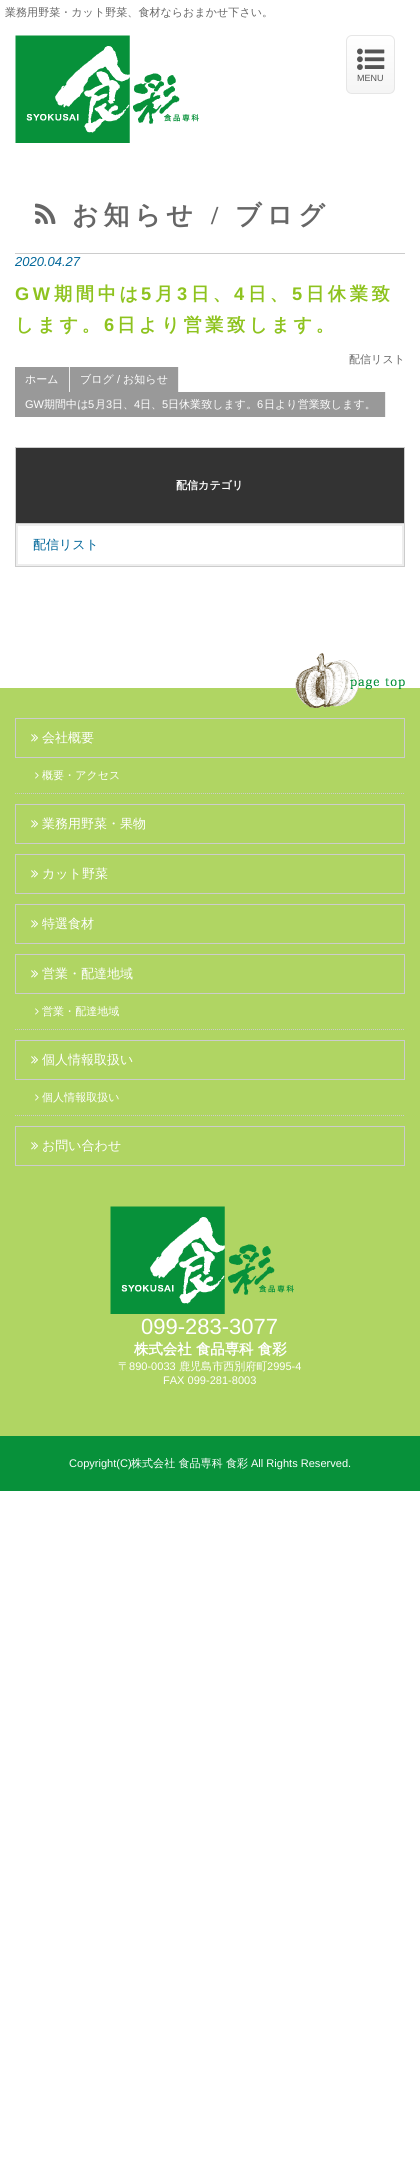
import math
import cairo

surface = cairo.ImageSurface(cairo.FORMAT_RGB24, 420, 2178)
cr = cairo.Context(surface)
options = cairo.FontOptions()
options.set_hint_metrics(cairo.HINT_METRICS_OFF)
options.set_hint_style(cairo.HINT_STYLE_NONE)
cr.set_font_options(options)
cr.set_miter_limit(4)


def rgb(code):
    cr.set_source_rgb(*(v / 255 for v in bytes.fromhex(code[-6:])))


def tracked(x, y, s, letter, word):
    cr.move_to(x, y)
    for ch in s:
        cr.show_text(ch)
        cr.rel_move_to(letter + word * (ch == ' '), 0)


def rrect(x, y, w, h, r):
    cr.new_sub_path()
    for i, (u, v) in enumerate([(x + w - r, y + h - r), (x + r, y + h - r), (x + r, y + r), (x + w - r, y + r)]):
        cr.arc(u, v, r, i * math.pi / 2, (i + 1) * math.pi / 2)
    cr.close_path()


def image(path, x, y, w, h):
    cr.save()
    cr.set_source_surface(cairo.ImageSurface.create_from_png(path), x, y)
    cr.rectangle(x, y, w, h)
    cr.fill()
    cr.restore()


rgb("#ffffff")
cr.paint()
image("img/1.png", 15, 35, 184, 108)
cr.save()
rrect(346, 35, 49, 59, 6)
cr.clip()
gradient = cairo.LinearGradient(347, 36, 347, 93)
gradient.add_color_stop_rgba(0, 1, 1, 1, 1)
gradient.add_color_stop_rgba(1, 0.961, 0.961, 0.961, 1)
cr.set_source(gradient)
cr.rectangle(346, 36, 49, 57)
cr.fill()
cr.restore()
rrect(346.5, 35.5, 48, 58, 5.5)
rgb("#e6e6e6")
cr.set_line_width(1)
cr.stroke()
image("img/2.png", 357, 48, 28, 22)
rgb("#cccccc")
cr.rectangle(15, 253, 390, 1)
cr.fill()
image("img/3.png", 35, 203, 21, 21)
for x, y, w, h, color in [
    (15, 367, 54, 25, "#999999"),
    (69, 367, 1, 25, "#eeeeee"),
    (70, 367, 108, 25, "#999999"),
    (178, 367, 1, 25, "#eeeeee"),
    (15, 392, 370, 25, "#999999"),
    (385, 392, 1, 25, "#eeeeee"),
]:
    rgb(color)
    cr.rectangle(x, y, w, h)
    cr.fill()
cr.rectangle(15.5, 447.5, 389, 119)
rgb("#cccccc")
cr.stroke()
rgb("#333333")
cr.rectangle(16, 448, 388, 75)
cr.fill()
rgb("#cccccc")
cr.rectangle(16, 523, 388, 1)
cr.fill()
cr.rectangle(17, 525, 386, 40)
rgb("#eeeeee")
cr.set_line_width(2)
cr.stroke()
rgb("#b0d563")
cr.rectangle(0, 688, 420, 748)
cr.fill()
image("img/4.png", 295, 653, 110, 55)
cr.rectangle(15.5, 718.5, 389, 39)
rgb("#cccccc")
cr.set_line_width(1)
cr.stroke()
image("img/5.png", 31, 734, 7, 8)
cr.new_path()
cr.move_to(15, 793.5)
cr.line_to(405, 793.5)
cr.set_dash([1, 1])
cr.stroke()
image("img/6.png", 35, 772, 4, 7)
cr.rectangle(15.5, 804.5, 389, 39)
cr.set_dash([])
cr.stroke()
image("img/5.png", 31, 820, 7, 8)
cr.rectangle(15.5, 854.5, 389, 39)
cr.stroke()
image("img/5.png", 31, 870, 7, 8)
cr.rectangle(15.5, 904.5, 389, 39)
cr.stroke()
image("img/5.png", 31, 920, 7, 8)
cr.rectangle(15.5, 954.5, 389, 39)
cr.stroke()
image("img/5.png", 31, 970, 7, 8)
cr.new_path()
cr.move_to(15, 1029.5)
cr.line_to(405, 1029.5)
cr.set_dash([1, 1])
cr.stroke()
image("img/6.png", 35, 1008, 4, 7)
cr.rectangle(15.5, 1040.5, 389, 39)
cr.set_dash([])
cr.stroke()
image("img/5.png", 31, 1056, 7, 8)
cr.new_path()
cr.move_to(15, 1115.5)
cr.line_to(405, 1115.5)
cr.set_dash([1, 1])
cr.stroke()
image("img/6.png", 35, 1094, 4, 7)
cr.rectangle(15.5, 1126.5, 389, 39)
cr.set_dash([])
cr.stroke()
image("img/5.png", 31, 1142, 7, 8)
image("img/7.png", 110, 1206, 184, 108)
rgb("#07913a")
cr.rectangle(0, 1436, 420, 55)
cr.fill()
cr.select_font_face("WenQuanYi Zen Hei Medium")
cr.set_font_size(11.05)
rgb("#666666")
cr.move_to(5, 16)
cr.show_text("業務用野菜・カット野菜、食材ならおまかせ下さい。")
cr.select_font_face("Liberation Sans")
cr.set_font_size(9)
rgb("#545454")
cr.move_to(357, 81)
cr.show_text("MENU")
cr.select_font_face("WenQuanYi Zen Hei", cairo.FONT_SLANT_NORMAL, cairo.FONT_WEIGHT_BOLD)
cr.set_font_size(26)
rgb("#666666")
tracked(72, 224, "お知らせ", 5, 0)
cr.select_font_face("Liberation Serif", cairo.FONT_SLANT_NORMAL, cairo.FONT_WEIGHT_BOLD)
tracked(211, 224, "/", 5, 0)
cr.select_font_face("WenQuanYi Zen Hei", cairo.FONT_SLANT_NORMAL, cairo.FONT_WEIGHT_BOLD)
tracked(235, 224, "ブログ", 5, 0)
cr.select_font_face("Liberation Sans", cairo.FONT_SLANT_ITALIC)
cr.set_font_size(13)
rgb("#006699")
cr.move_to(15, 266)
cr.show_text("2020.04.27")
cr.select_font_face("Liberation Sans", cairo.FONT_SLANT_NORMAL, cairo.FONT_WEIGHT_BOLD)
cr.set_font_size(18.25)
rgb("#8ec31f")
tracked(15, 300, "GW", 3.6, 0)
cr.select_font_face("WenQuanYi Zen Hei", cairo.FONT_SLANT_NORMAL, cairo.FONT_WEIGHT_BOLD)
tracked(54, 300, "期間中は", 3.6, 0)
cr.select_font_face("Liberation Sans", cairo.FONT_SLANT_NORMAL, cairo.FONT_WEIGHT_BOLD)
tracked(141, 300, "5", 3.6, 0)
cr.select_font_face("WenQuanYi Zen Hei", cairo.FONT_SLANT_NORMAL, cairo.FONT_WEIGHT_BOLD)
tracked(155, 300, "月", 3.6, 0)
cr.select_font_face("Liberation Sans", cairo.FONT_SLANT_NORMAL, cairo.FONT_WEIGHT_BOLD)
tracked(177, 300, "3", 3.6, 0)
cr.select_font_face("WenQuanYi Zen Hei", cairo.FONT_SLANT_NORMAL, cairo.FONT_WEIGHT_BOLD)
tracked(191, 300, "日、", 3.6, 0)
cr.select_font_face("Liberation Sans", cairo.FONT_SLANT_NORMAL, cairo.FONT_WEIGHT_BOLD)
tracked(234, 300, "4", 3.6, 0)
cr.select_font_face("WenQuanYi Zen Hei", cairo.FONT_SLANT_NORMAL, cairo.FONT_WEIGHT_BOLD)
tracked(248, 300, "日、", 3.6, 0)
cr.select_font_face("Liberation Sans", cairo.FONT_SLANT_NORMAL, cairo.FONT_WEIGHT_BOLD)
tracked(292, 300, "5", 3.6, 0)
cr.select_font_face("WenQuanYi Zen Hei", cairo.FONT_SLANT_NORMAL, cairo.FONT_WEIGHT_BOLD)
tracked(306, 300, "日休業致", 3.6, 0)
tracked(15, 331, "します。", 3.6, 0)
cr.select_font_face("Liberation Sans", cairo.FONT_SLANT_NORMAL, cairo.FONT_WEIGHT_BOLD)
tracked(104, 331, "6", 3.6, 0)
cr.select_font_face("WenQuanYi Zen Hei", cairo.FONT_SLANT_NORMAL, cairo.FONT_WEIGHT_BOLD)
tracked(117, 331, "日より営業致します。", 3.6, 0)
cr.select_font_face("WenQuanYi Zen Hei Medium")
cr.set_font_size(11.05)
rgb("#666666")
cr.move_to(349, 363)
cr.show_text("配信リスト")
rgb("#ffffff")
cr.move_to(25, 383)
cr.show_text("ホーム")
cr.move_to(80, 383)
cr.show_text("ブログ")
cr.select_font_face("Liberation Sans")
cr.move_to(117, 383)
cr.show_text("/")
cr.select_font_face("WenQuanYi Zen Hei Medium")
cr.move_to(123, 383)
cr.show_text("お知らせ")
cr.select_font_face("Liberation Sans")
cr.move_to(25, 408)
cr.show_text("GW")
cr.select_font_face("WenQuanYi Zen Hei Medium")
cr.move_to(44, 408)
cr.show_text("期間中は")
cr.select_font_face("Liberation Sans")
cr.move_to(88, 408)
cr.show_text("5")
cr.select_font_face("WenQuanYi Zen Hei Medium")
cr.move_to(95, 408)
cr.show_text("月")
cr.select_font_face("Liberation Sans")
cr.move_to(106, 408)
cr.show_text("3")
cr.select_font_face("WenQuanYi Zen Hei Medium")
cr.move_to(112, 408)
cr.show_text("日、")
cr.select_font_face("Liberation Sans")
cr.move_to(134, 408)
cr.show_text("4")
cr.select_font_face("WenQuanYi Zen Hei Medium")
cr.move_to(140, 408)
cr.show_text("日、")
cr.select_font_face("Liberation Sans")
cr.move_to(162, 408)
cr.show_text("5")
cr.select_font_face("WenQuanYi Zen Hei Medium")
cr.move_to(168, 408)
cr.show_text("日休業致します。")
cr.select_font_face("Liberation Sans")
cr.move_to(257, 408)
cr.show_text("6")
cr.select_font_face("WenQuanYi Zen Hei Medium")
cr.move_to(264, 408)
cr.show_text("日より営業致します。")
cr.select_font_face("WenQuanYi Zen Hei", cairo.FONT_SLANT_NORMAL, cairo.FONT_WEIGHT_BOLD)
cr.move_to(176, 489)
cr.show_text("配信カテゴリ")
cr.select_font_face("WenQuanYi Zen Hei Medium")
cr.set_font_size(13)
rgb("#006699")
cr.move_to(33, 549)
cr.show_text("配信リスト")
rgb("#ffffff")
cr.move_to(42, 742)
cr.show_text("会社概要")
cr.set_font_size(11.05)
cr.move_to(42, 779)
cr.show_text("概要・アクセス")
cr.set_font_size(13)
for x, y, s in [
    (42, 828, "業務用野菜・果物"),
    (42, 878, "カット野菜"),
    (42, 928, "特選食材"),
    (42, 978, "営業・配達地域"),
]:
    cr.move_to(x, y)
    cr.show_text(s)
cr.set_font_size(11.05)
cr.move_to(42, 1015)
cr.show_text("営業・配達地域")
cr.set_font_size(13)
cr.move_to(42, 1064)
cr.show_text("個人情報取扱い")
cr.set_font_size(11.05)
cr.move_to(42, 1101)
cr.show_text("個人情報取扱い")
cr.set_font_size(13)
cr.move_to(42, 1150)
cr.show_text("お問い合わせ")
cr.select_font_face("Liberation Sans")
cr.set_font_size(22)
cr.move_to(141, 1334)
cr.show_text("099-283-3077")
cr.select_font_face("WenQuanYi Zen Hei", cairo.FONT_SLANT_NORMAL, cairo.FONT_WEIGHT_BOLD)
cr.set_font_size(14.4)
cr.move_to(134, 1354)
cr.show_text("株式会社 食品専科 食彩")
cr.select_font_face("WenQuanYi Zen Hei Medium")
cr.set_font_size(11.05)
cr.move_to(118, 1370)
cr.show_text("〒")
cr.select_font_face("Liberation Sans")
cr.move_to(129, 1370)
cr.show_text("890-0033")
cr.select_font_face("WenQuanYi Zen Hei Medium")
cr.move_to(179, 1370)
cr.show_text("鹿児島市西別府町")
cr.select_font_face("Liberation Sans")
for x, y, s in [
    (267, 1370, "2995-4"),
    (163, 1384, "FAX 099-281-8003"),
    (69, 1467, "Copyright(C)"),
]:
    cr.move_to(x, y)
    cr.show_text(s)
cr.select_font_face("WenQuanYi Zen Hei Medium")
cr.move_to(131, 1467)
cr.show_text("株式会社 食品専科 食彩")
cr.select_font_face("Liberation Sans")
cr.move_to(251, 1467)
cr.show_text("All Rights Reserved.")
surface.write_to_png("page.png")
